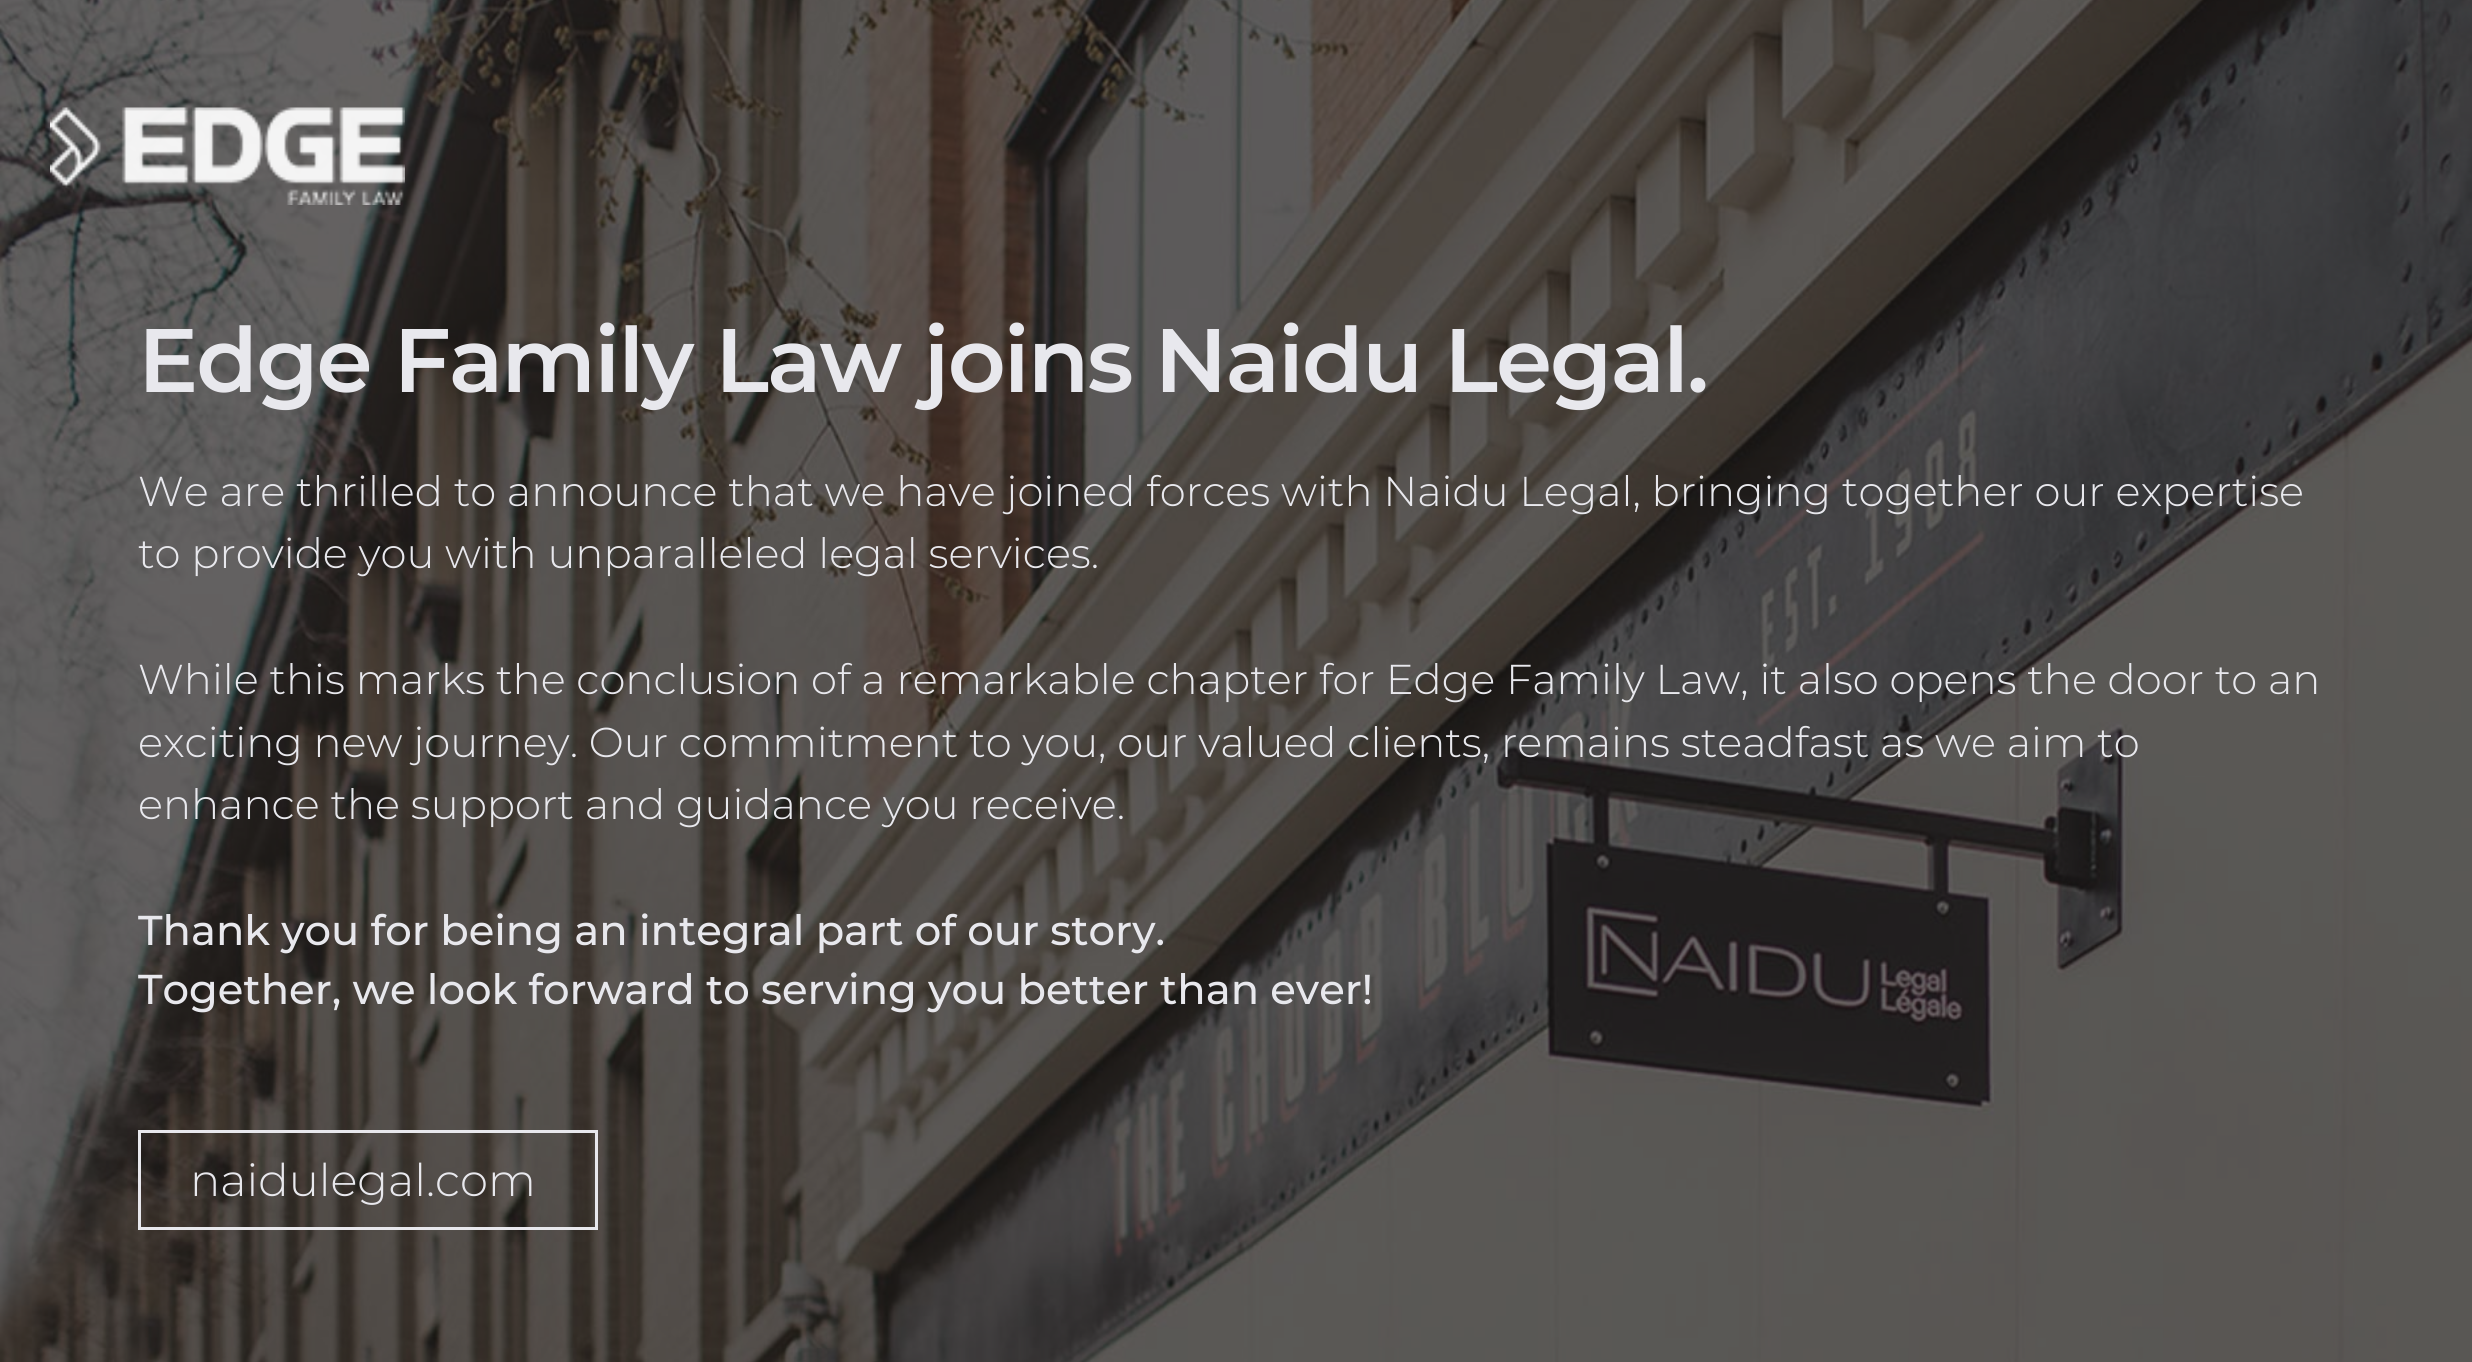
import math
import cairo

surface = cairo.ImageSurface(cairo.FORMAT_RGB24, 2472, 1362)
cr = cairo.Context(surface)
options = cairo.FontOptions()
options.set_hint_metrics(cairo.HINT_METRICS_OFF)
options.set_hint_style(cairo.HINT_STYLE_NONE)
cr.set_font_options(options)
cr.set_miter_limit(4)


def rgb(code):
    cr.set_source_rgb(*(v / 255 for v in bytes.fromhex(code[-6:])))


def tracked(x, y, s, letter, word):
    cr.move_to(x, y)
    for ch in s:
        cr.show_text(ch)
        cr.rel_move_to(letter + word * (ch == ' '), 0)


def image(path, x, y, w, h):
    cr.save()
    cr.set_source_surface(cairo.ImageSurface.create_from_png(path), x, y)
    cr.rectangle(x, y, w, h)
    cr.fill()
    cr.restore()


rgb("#ffffff")
cr.paint()
image("img/1.png", 0, 0, 2472, 1362)
image("img/2.png", 50, 107, 355, 98)
cr.rectangle(139.5, 1131.5, 457, 97)
rgb("#e8e8ed")
cr.set_line_width(3)
cr.stroke()
cr.select_font_face("Montserrat SemiBold")
cr.set_font_size(90)
tracked(138, 392, "Edge Family Law joins Naidu Legal.", -2, 0)
cr.select_font_face("Montserrat Light")
cr.set_font_size(41.75)
for x, y, s in [
    (138, 506, "We are thrilled to announce that we have joined forces with Naidu Legal, bringing together our expertise"),
    (138, 568, "to provide you with unparalleled legal services."),
    (138, 694, "While this marks the conclusion of a remarkable chapter for Edge Family Law, it also opens the door to an"),
    (138, 757, "exciting new journey. Our commitment to you, our valued clients, remains steadfast as we aim to"),
    (138, 819, "enhance the support and guidance you receive."),
]:
    cr.move_to(x, y)
    cr.show_text(s)
cr.select_font_face("Montserrat Medium")
cr.move_to(138, 945)
cr.show_text("Thank you for being an integral part of our story.")
cr.move_to(138, 1004)
cr.show_text("Together, we look forward to serving you better than ever!")
cr.select_font_face("Montserrat Light")
cr.set_font_size(45)
cr.move_to(190, 1196)
cr.show_text("naidulegal.com")
surface.write_to_png("page.png")
